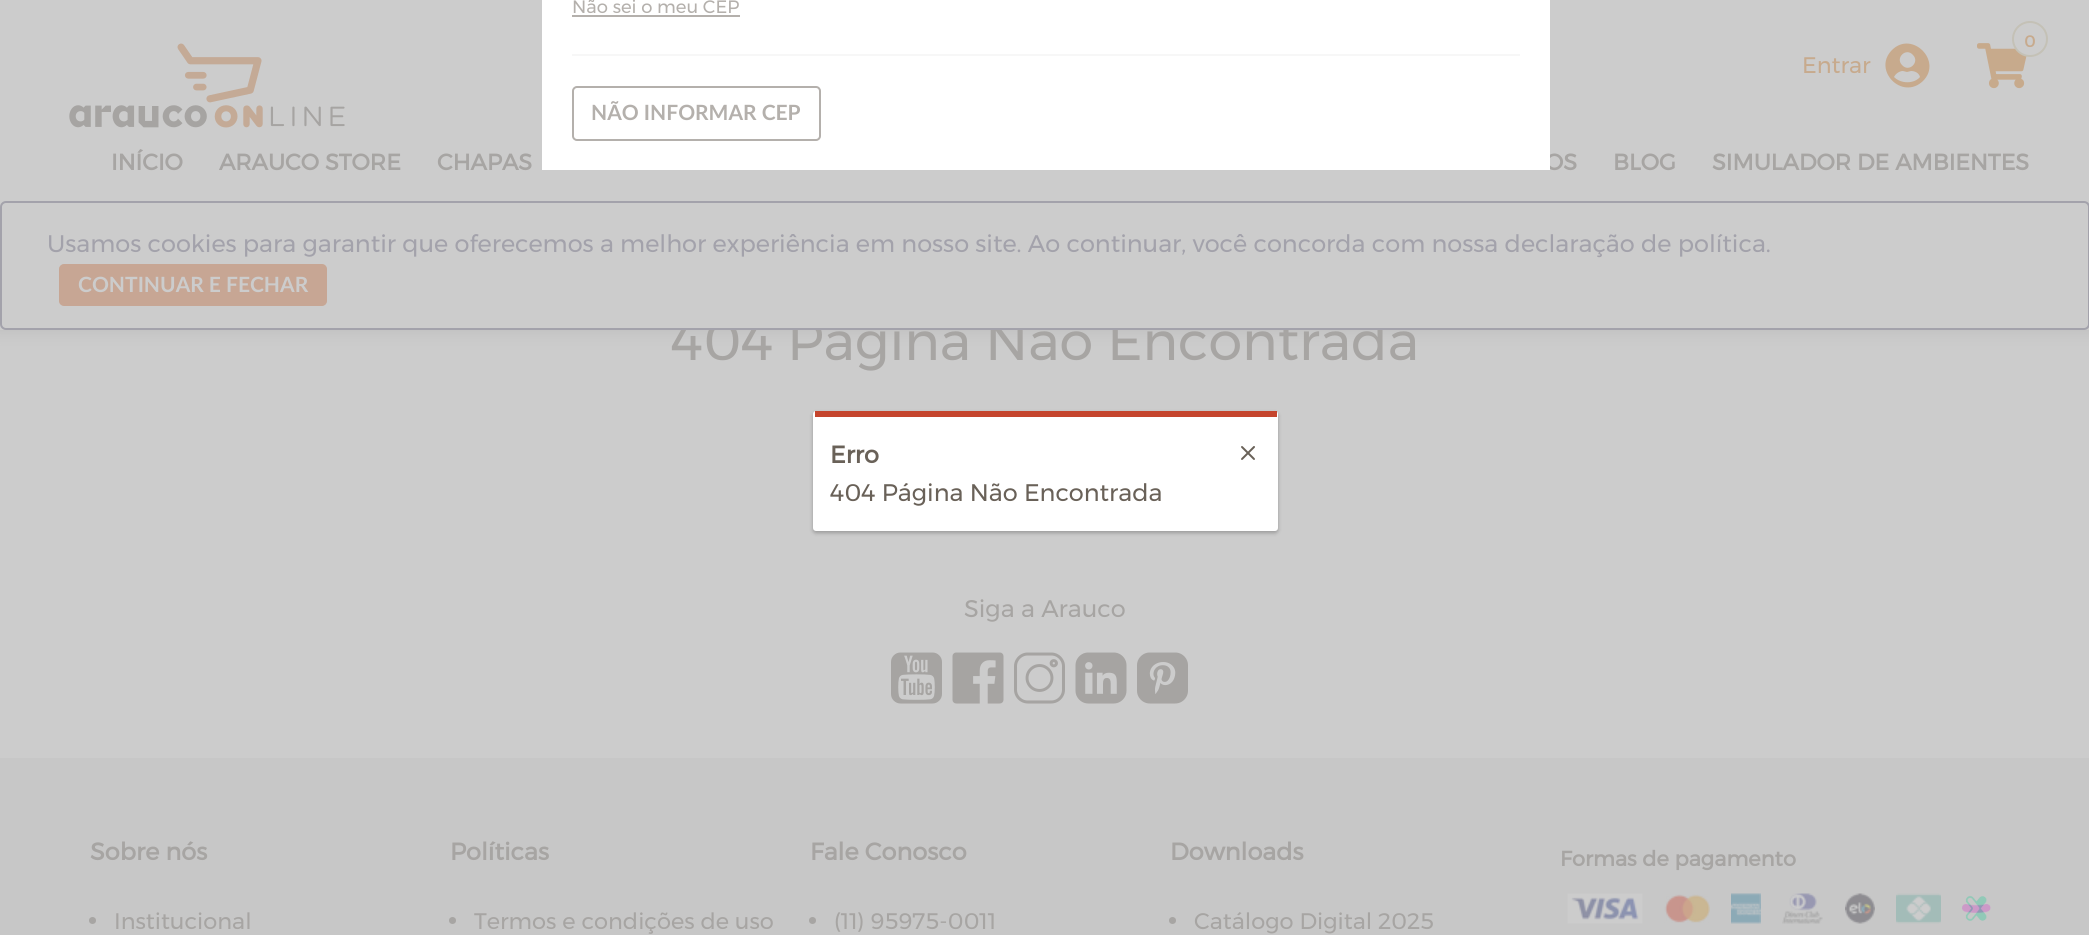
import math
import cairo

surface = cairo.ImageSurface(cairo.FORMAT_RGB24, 2089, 935)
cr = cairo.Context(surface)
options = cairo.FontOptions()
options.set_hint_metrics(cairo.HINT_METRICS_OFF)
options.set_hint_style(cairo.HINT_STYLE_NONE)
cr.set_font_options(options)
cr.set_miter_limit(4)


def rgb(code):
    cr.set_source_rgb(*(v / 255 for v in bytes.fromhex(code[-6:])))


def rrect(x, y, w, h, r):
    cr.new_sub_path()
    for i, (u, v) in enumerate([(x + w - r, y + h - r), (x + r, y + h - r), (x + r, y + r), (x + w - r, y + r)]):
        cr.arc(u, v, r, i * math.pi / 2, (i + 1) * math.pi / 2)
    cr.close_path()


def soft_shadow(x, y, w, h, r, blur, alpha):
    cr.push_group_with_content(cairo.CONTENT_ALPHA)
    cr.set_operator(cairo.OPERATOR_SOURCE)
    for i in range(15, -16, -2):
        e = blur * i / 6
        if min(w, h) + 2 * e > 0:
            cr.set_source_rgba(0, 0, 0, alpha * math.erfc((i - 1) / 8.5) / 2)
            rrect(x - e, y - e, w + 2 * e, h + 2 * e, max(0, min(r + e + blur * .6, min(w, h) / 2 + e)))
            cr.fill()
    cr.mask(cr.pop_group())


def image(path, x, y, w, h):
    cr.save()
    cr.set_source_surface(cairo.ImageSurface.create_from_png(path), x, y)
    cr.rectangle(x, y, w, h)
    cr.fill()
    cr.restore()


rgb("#cccccc")
cr.paint()
rgb("#8d8d8d")
soft_shadow(-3, -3, 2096, 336, 0, 7.5, 0.2)
rgb("#c7c7c7")
cr.rectangle(0, 758, 2089, 177)
cr.fill()
image("img/3.png", 891, 652, 51, 52)
image("img/4.png", 952, 652, 52, 52)
image("img/5.png", 1014, 652, 51, 52)
image("img/6.png", 1075, 652, 52, 52)
image("img/7.png", 1137, 652, 51, 52)
rgb("#a7a5a3")
cr.arc(92.5, 920.5, 3.5, 0, 2 * math.pi)
cr.fill()
cr.arc(452.5, 920.5, 3.5, 0, 2 * math.pi)
cr.fill()
cr.arc(812.5, 920.5, 3.5, 0, 2 * math.pi)
cr.fill()
cr.arc(1172.5, 920.5, 3.5, 0, 2 * math.pi)
cr.fill()
image("img/8.png", 1567, 893, 76, 31)
image("img/9.png", 1664, 894, 46, 29)
image("img/10.png", 1731, 893, 30, 31)
image("img/11.png", 1782, 893, 41, 31)
image("img/12.png", 1845, 893, 30, 31)
image("img/13.png", 1896, 893, 45, 31)
image("img/14.png", 1962, 895, 29, 26)
rgb("#000000")
soft_shadow(813, 413, 465, 120, 3, 2, 0.25)
rgb("#ffffff")
rrect(813, 411, 465, 120, 3)
cr.fill()
rgb("#c5452d")
cr.rectangle(815, 411, 462, 6)
cr.fill()
image("img/15.png", 1241, 446, 14, 14)
cr.select_font_face("Montserrat")
cr.set_font_size(54)
rgb("#a7a5a3")
cr.move_to(671, 360)
cr.show_text("404 Página Não Encontrada")
rgb("#cccccc")
cr.rectangle(0, 0, 2089, 330)
cr.fill()
cr.select_font_face("Montserrat", cairo.FONT_SLANT_NORMAL, cairo.FONT_WEIGHT_BOLD)
cr.set_font_size(22.5)
rgb("#a7a5a3")
cr.move_to(1545, 170)
cr.show_text("OS")
rgb("#ffffff")
cr.rectangle(542, 0, 1008, 170)
cr.fill()
rgb("#f7f7f7")
cr.rectangle(572, 54, 948, 2)
cr.fill()
rrect(573, 87, 247, 53, 4)
rgb("#b4b0ac")
cr.stroke()
cr.select_font_face("Lato", cairo.FONT_SLANT_NORMAL, cairo.FONT_WEIGHT_BOLD)
cr.set_font_size(21)
cr.move_to(591, 120)
cr.show_text("NÃO INFORMAR CEP")
cr.select_font_face("Montserrat")
cr.set_font_size(18)
cr.move_to(572, 13)
cr.show_text("Não sei o meu CEP")
cr.rectangle(572, 15, 168, 2)
cr.fill()
cr.select_font_face("Montserrat", cairo.FONT_SLANT_NORMAL, cairo.FONT_WEIGHT_BOLD)
cr.set_font_size(22.5)
rgb("#a7a5a3")
for x, y, s in [
    (1712, 170, "SIMULADOR DE AMBIENTES"),
    (1613, 170, "BLOG"),
    (437, 170, "CHAPAS"),
    (219, 170, "ARAUCO STORE"),
    (111, 170, "INÍCIO"),
]:
    cr.move_to(x, y)
    cr.show_text(s)
image("img/2.png", 1977, 43, 50, 46)
rgb("#cccccc")
cr.arc(2030, 39, 17, 0, 2 * math.pi)
cr.fill_preserve()
rgb("#c4c1b6")
cr.stroke()
cr.set_font_size(16)
rgb("#c7aa8d")
cr.move_to(2024, 47)
cr.show_text("0")
cr.new_path()
cr.move_to(1892, 50)
cr.curve_to(1912, 30, 1943, 61, 1923, 81)
cr.curve_to(1902, 101, 1872, 70, 1892, 50)
cr.close_path()
cr.move_to(1913, 55)
cr.curve_to(1906, 47, 1895, 58, 1902, 65)
cr.curve_to(1909, 73, 1920, 62, 1913, 55)
cr.close_path()
cr.move_to(1894, 77)
cr.curve_to(1901, 84, 1914, 84, 1920, 77)
cr.curve_to(1919, 73, 1915, 71, 1911, 71)
cr.line_to(1907, 72)
cr.line_to(1903, 71)
cr.curve_to(1900, 71, 1896, 73, 1894, 77)
cr.close_path()
cr.fill()
cr.select_font_face("Montserrat")
cr.set_font_size(22.5)
cr.move_to(1802, 73)
cr.show_text("Entrar")
rrect(1, 202, 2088, 127, 5)
rgb("#a3a2ab")
cr.stroke()
rgb("#c7a694")
rrect(60, 265, 266, 40, 4)
cr.fill_preserve()
cr.stroke()
cr.select_font_face("Lato", cairo.FONT_SLANT_NORMAL, cairo.FONT_WEIGHT_BOLD)
cr.set_font_size(21)
rgb("#cccccc")
cr.move_to(78, 292)
cr.show_text("CONTINUAR E FECHAR")
cr.select_font_face("Montserrat")
cr.set_font_size(24)
rgb("#a3a2ab")
cr.move_to(47, 252)
cr.show_text("Usamos cookies para garantir que oferecemos a melhor experiência em nosso site. Ao continuar, você concorda com nossa declaração de política.")
image("img/1.png", 69, 43, 276, 85)
rgb("#a7a5a3")
cr.move_to(964, 617)
cr.show_text("Siga a Arauco")
cr.select_font_face("Montserrat", cairo.FONT_SLANT_NORMAL, cairo.FONT_WEIGHT_BOLD)
cr.move_to(90, 860)
cr.show_text("Sobre nós")
cr.select_font_face("Montserrat")
cr.set_font_size(22.5)
cr.move_to(114, 929)
cr.show_text("Institucional")
cr.select_font_face("Montserrat", cairo.FONT_SLANT_NORMAL, cairo.FONT_WEIGHT_BOLD)
cr.set_font_size(24)
cr.move_to(450, 860)
cr.show_text("Políticas")
cr.select_font_face("Montserrat")
cr.set_font_size(22.5)
cr.move_to(474, 929)
cr.show_text("Termos e condições de uso")
cr.select_font_face("Montserrat", cairo.FONT_SLANT_NORMAL, cairo.FONT_WEIGHT_BOLD)
cr.set_font_size(24)
cr.move_to(810, 860)
cr.show_text("Fale Conosco")
cr.select_font_face("Montserrat")
cr.set_font_size(22.5)
cr.move_to(834, 929)
cr.show_text("(11) 95975-0011")
cr.select_font_face("Montserrat", cairo.FONT_SLANT_NORMAL, cairo.FONT_WEIGHT_BOLD)
cr.set_font_size(24)
cr.move_to(1170, 860)
cr.show_text("Downloads")
cr.select_font_face("Montserrat")
cr.set_font_size(22.5)
cr.move_to(1194, 929)
cr.show_text("Catálogo Digital 2025")
cr.select_font_face("Montserrat", cairo.FONT_SLANT_NORMAL, cairo.FONT_WEIGHT_BOLD)
cr.set_font_size(21)
cr.move_to(1560, 866)
cr.show_text("Formas de pagamento")
cr.set_font_size(24)
rgb("#696158")
cr.move_to(830, 463)
cr.show_text("Erro")
cr.select_font_face("Montserrat")
cr.move_to(830, 501)
cr.show_text("404 Página Não Encontrada")
surface.write_to_png("page.png")
